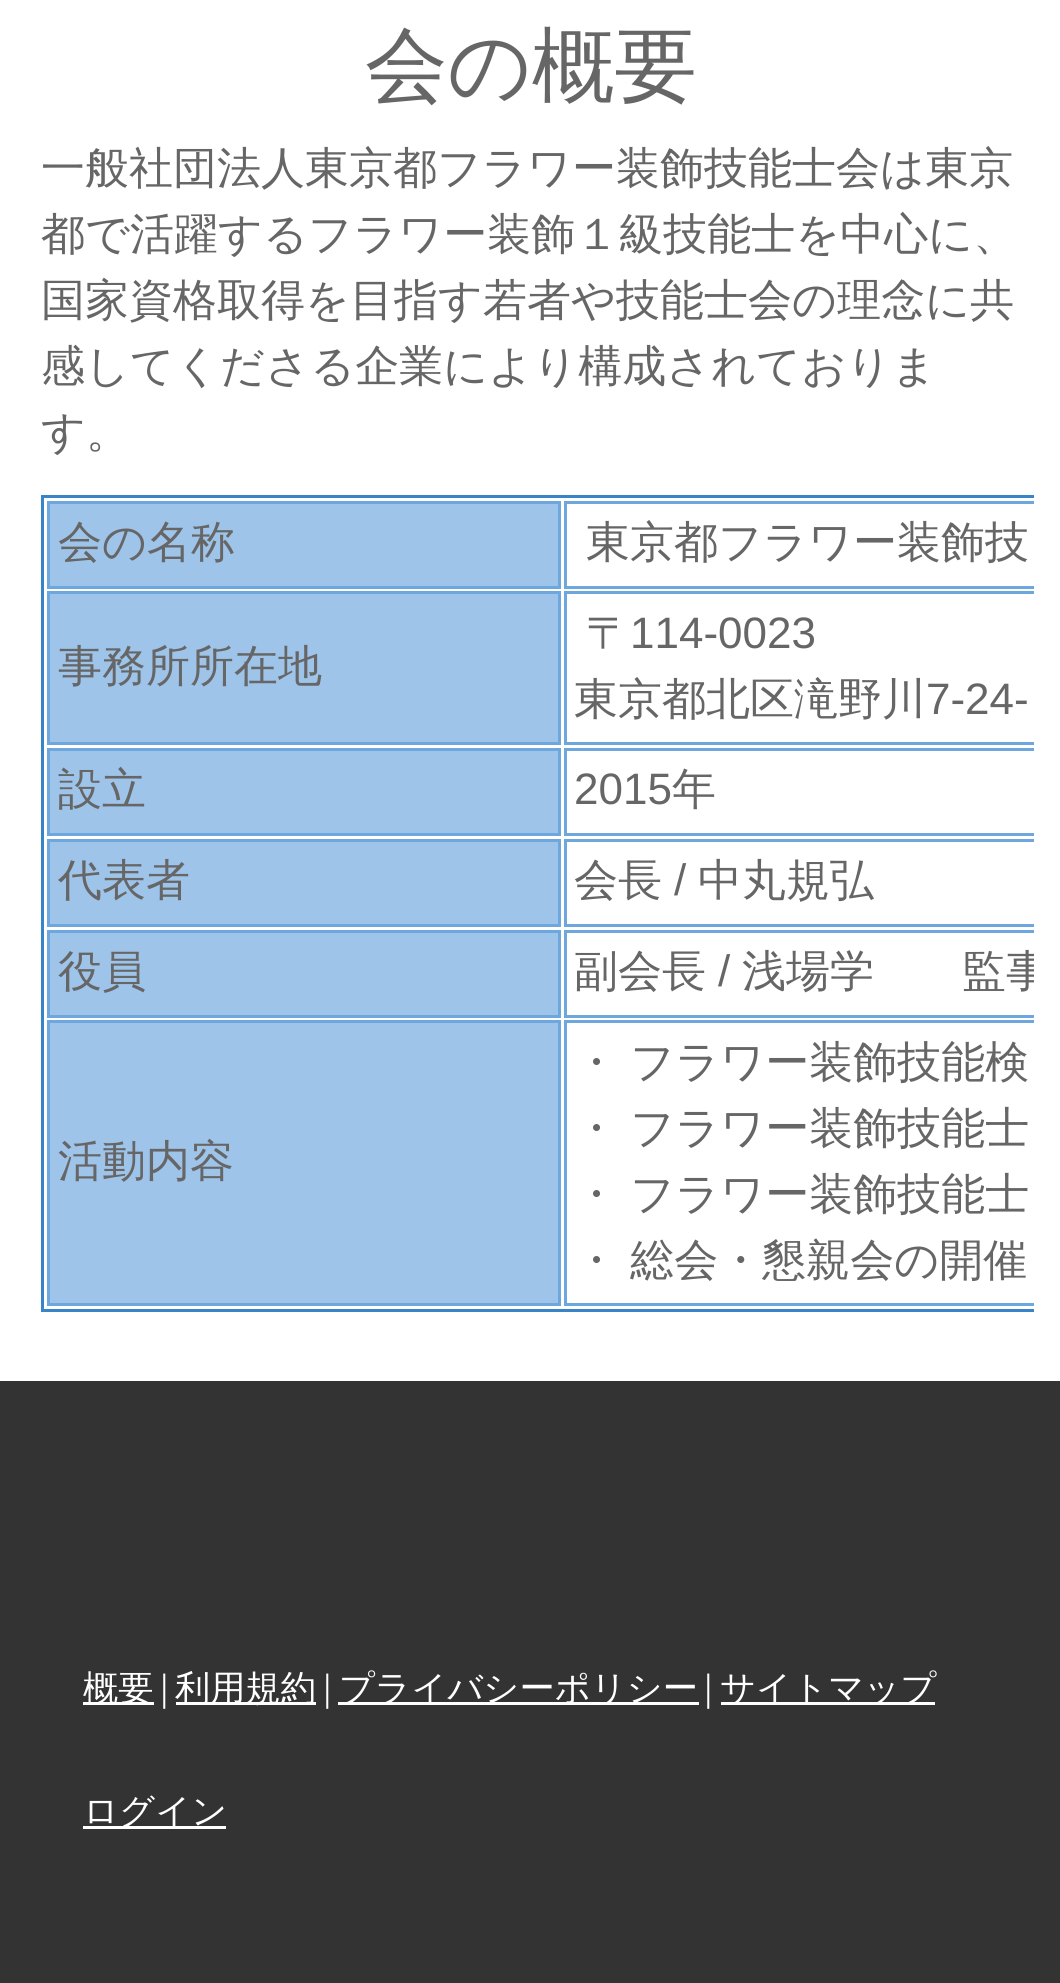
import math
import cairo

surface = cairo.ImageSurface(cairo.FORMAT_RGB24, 1060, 1983)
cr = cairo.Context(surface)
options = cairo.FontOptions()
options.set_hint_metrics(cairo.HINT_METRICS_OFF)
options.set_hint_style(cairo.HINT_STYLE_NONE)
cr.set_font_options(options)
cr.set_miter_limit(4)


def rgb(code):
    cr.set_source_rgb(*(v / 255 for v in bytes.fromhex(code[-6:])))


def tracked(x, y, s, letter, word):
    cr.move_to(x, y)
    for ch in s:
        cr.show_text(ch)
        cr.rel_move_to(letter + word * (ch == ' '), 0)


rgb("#ffffff")
cr.paint()
cr.save()
cr.rectangle(28, 481, 1006, 845)
cr.clip()
cr.rectangle(42.5, 496.5, 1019, 814)
rgb("#3984c8")
cr.set_line_width(3)
cr.stroke()
cr.restore()
rgb("#9ec4ea")
cr.rectangle(48.5, 502.5, 511, 85)
cr.fill_preserve()
rgb("#6da7de")
cr.set_line_width(3)
cr.stroke()
cr.save()
cr.rectangle(28, 481, 1006, 845)
cr.clip()
cr.rectangle(565.5, 502.5, 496, 85)
cr.stroke()
cr.restore()
rgb("#9ec4ea")
cr.rectangle(48.5, 592.5, 511, 151)
cr.fill_preserve()
rgb("#6da7de")
cr.stroke()
cr.save()
cr.rectangle(28, 481, 1006, 845)
cr.clip()
cr.rectangle(565.5, 592.5, 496, 151)
cr.stroke()
cr.restore()
rgb("#9ec4ea")
cr.rectangle(48.5, 749.5, 511, 85)
cr.fill_preserve()
rgb("#6da7de")
cr.stroke()
cr.save()
cr.rectangle(28, 481, 1006, 845)
cr.clip()
cr.rectangle(565.5, 749.5, 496, 85)
cr.stroke()
cr.restore()
rgb("#9ec4ea")
cr.rectangle(48.5, 840.5, 511, 85)
cr.fill_preserve()
rgb("#6da7de")
cr.stroke()
cr.save()
cr.rectangle(28, 481, 1006, 845)
cr.clip()
cr.rectangle(565.5, 840.5, 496, 85)
cr.stroke()
cr.restore()
rgb("#9ec4ea")
cr.rectangle(48.5, 931.5, 511, 85)
cr.fill_preserve()
rgb("#6da7de")
cr.stroke()
cr.save()
cr.rectangle(28, 481, 1006, 845)
cr.clip()
cr.rectangle(565.5, 931.5, 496, 85)
cr.stroke()
cr.restore()
rgb("#9ec4ea")
cr.rectangle(48.5, 1021.5, 511, 283)
cr.fill_preserve()
rgb("#6da7de")
cr.stroke()
cr.save()
cr.rectangle(28, 481, 1006, 845)
cr.clip()
cr.rectangle(565.5, 1021.5, 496, 283)
cr.stroke()
cr.restore()
for x, y, w, h, color in [
    (0, 1381, 1060, 602, "#333333"),
    (83, 1702, 71, 3, "#ffffff"),
    (176, 1702, 140, 3, "#ffffff"),
    (338, 1702, 361, 3, "#ffffff"),
    (721, 1702, 214, 3, "#ffffff"),
    (83, 1826, 143, 3, "#ffffff"),
]:
    rgb(color)
    cr.rectangle(x, y, w, h)
    cr.fill()
cr.select_font_face("WenQuanYi Zen Hei Medium")
cr.set_font_size(82.5)
rgb("#666666")
cr.move_to(365, 94)
cr.show_text("会の概要")
cr.set_font_size(44)
for x, y, s in [
    (41, 183, "一般社団法人東京都フラワー装飾技能士会は東京"),
    (41, 249, "都で活躍するフラワー装飾１級技能士を中心に、"),
    (41, 315, "国家資格取得を目指す若者や技能士会の理念に共"),
    (41, 381, "感してくださる企業により構成されておりま"),
    (41, 447, "す。"),
    (58, 557, "会の名称"),
    (586, 557, "東京都フラワー装飾技"),
    (58, 681, "事務所所在地"),
    (586, 648, "〒"),
]:
    cr.move_to(x, y)
    cr.show_text(s)
cr.select_font_face("Liberation Sans")
cr.move_to(630, 648)
cr.show_text("114-0023")
cr.select_font_face("WenQuanYi Zen Hei Medium")
cr.move_to(574, 714)
cr.show_text("東京都北区滝野川")
cr.select_font_face("Liberation Sans")
cr.move_to(926, 714)
cr.show_text("7-24-")
cr.select_font_face("WenQuanYi Zen Hei Medium")
cr.move_to(58, 804)
cr.show_text("設立")
cr.select_font_face("Liberation Sans")
cr.move_to(574, 804)
cr.show_text("2015")
cr.select_font_face("WenQuanYi Zen Hei Medium")
for x, y, s in [
    (672, 804, "年"),
    (58, 895, "代表者"),
    (574, 895, "会長"),
]:
    cr.move_to(x, y)
    cr.show_text(s)
cr.select_font_face("Liberation Sans")
cr.move_to(674, 895)
cr.show_text("/")
cr.select_font_face("WenQuanYi Zen Hei Medium")
for x, y, s in [
    (698, 895, "中丸規弘"),
    (58, 986, "役員"),
    (574, 986, "副会長"),
]:
    cr.move_to(x, y)
    cr.show_text(s)
cr.select_font_face("Liberation Sans")
cr.move_to(718, 986)
cr.show_text("/")
cr.save()
cr.rectangle(28, 481, 1006, 845)
cr.clip()
cr.select_font_face("WenQuanYi Zen Hei Medium")
cr.move_to(742, 986)
cr.show_text("浅場学　　監事")
cr.restore()
cr.select_font_face("WenQuanYi Zen Hei Medium")
cr.move_to(58, 1176)
cr.show_text("活動内容")
for x, y, s in [
    (574, 1077, "・ フラワー装飾技能検"),
    (574, 1143, "・ フラワー装飾技能士"),
    (574, 1209, "・ フラワー装飾技能士"),
    (574, 1275, "・ 総会・懇親会の開催"),
]:
    tracked(x, y, s, 0, -1)
cr.set_font_size(35.25)
rgb("#ffffff")
cr.move_to(83, 1700)
cr.show_text("概要")
cr.select_font_face("Source Sans Pro")
cr.move_to(160, 1700)
cr.show_text("|")
cr.select_font_face("WenQuanYi Zen Hei Medium")
cr.move_to(175, 1700)
cr.show_text("利用規約")
cr.select_font_face("Source Sans Pro")
cr.move_to(323, 1700)
cr.show_text("|")
cr.select_font_face("WenQuanYi Zen Hei Medium")
cr.move_to(339, 1700)
cr.show_text("プライバシーポリシー")
cr.select_font_face("Source Sans Pro")
cr.move_to(704, 1700)
cr.show_text("|")
cr.select_font_face("WenQuanYi Zen Hei Medium")
cr.move_to(720, 1700)
cr.show_text("サイトマップ")
cr.move_to(83, 1823)
cr.show_text("ログイン")
surface.write_to_png("page.png")
